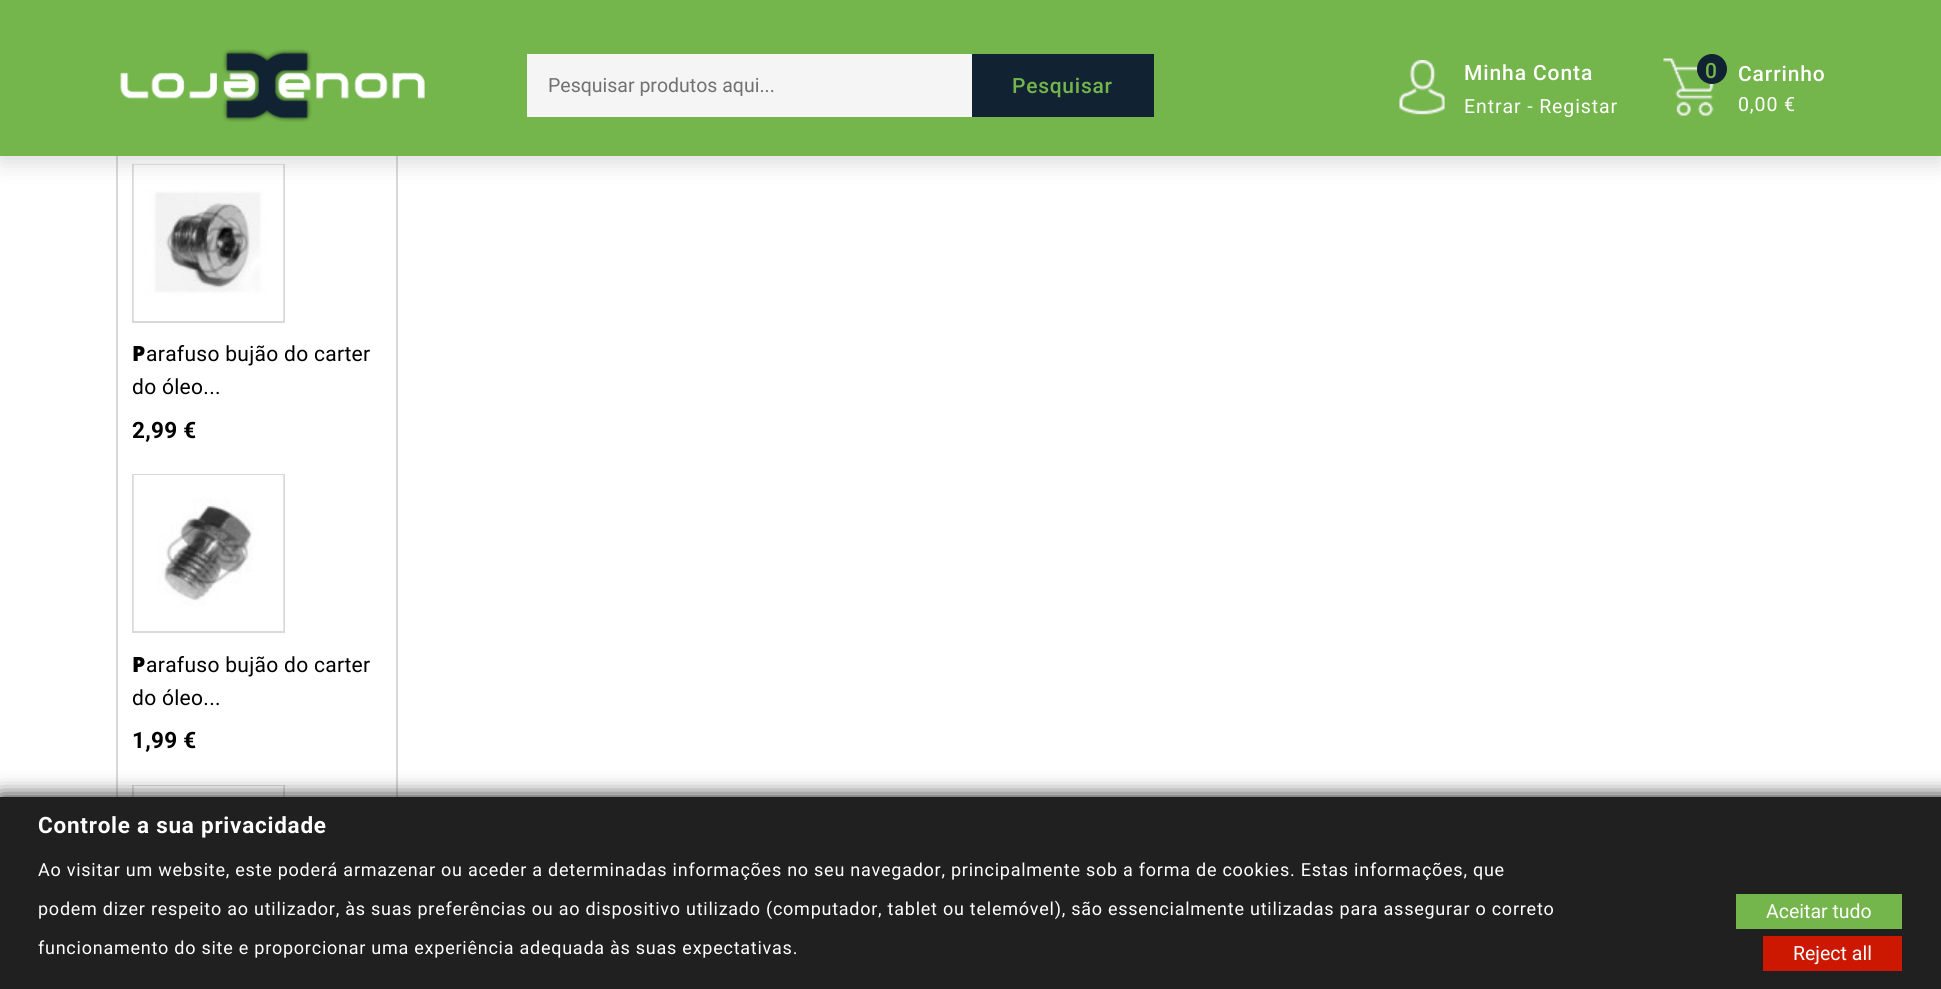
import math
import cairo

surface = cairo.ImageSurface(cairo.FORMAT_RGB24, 1941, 989)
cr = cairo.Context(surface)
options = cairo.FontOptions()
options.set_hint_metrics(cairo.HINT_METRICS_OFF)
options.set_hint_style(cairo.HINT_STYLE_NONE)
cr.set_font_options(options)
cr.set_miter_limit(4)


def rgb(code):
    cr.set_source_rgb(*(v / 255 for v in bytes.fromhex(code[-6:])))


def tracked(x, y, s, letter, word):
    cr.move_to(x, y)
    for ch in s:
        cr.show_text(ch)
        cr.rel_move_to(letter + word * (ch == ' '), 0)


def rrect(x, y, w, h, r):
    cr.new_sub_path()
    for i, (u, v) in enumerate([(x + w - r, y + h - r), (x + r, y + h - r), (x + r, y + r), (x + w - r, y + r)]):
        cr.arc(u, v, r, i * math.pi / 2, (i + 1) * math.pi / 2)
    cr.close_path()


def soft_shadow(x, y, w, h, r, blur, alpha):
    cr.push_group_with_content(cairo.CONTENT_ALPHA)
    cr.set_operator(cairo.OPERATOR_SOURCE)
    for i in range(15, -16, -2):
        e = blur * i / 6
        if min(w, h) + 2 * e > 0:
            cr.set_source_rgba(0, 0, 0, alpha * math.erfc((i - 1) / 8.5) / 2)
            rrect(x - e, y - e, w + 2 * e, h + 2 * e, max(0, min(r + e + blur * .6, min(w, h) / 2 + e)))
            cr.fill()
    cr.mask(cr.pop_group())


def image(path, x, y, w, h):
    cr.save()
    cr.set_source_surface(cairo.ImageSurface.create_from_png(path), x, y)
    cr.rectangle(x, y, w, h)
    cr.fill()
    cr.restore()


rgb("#ffffff")
cr.paint()
rgb("#d9d9d9")
cr.rectangle(396, 156, 2, 641)
cr.fill()
cr.rectangle(116, 156, 2, 641)
cr.fill()
cr.rectangle(133, 165, 151, 157)
cr.stroke()
image("img/4.png", 133, 164, 151, 156)
rgb("#000000")
soft_shadow(0, 6, 1941, 156, 0, 12, 0.15)
rgb("#74b64c")
cr.rectangle(0, 0, 1941, 156)
cr.fill()
image("img/1.png", 120, 49, 305, 73)
rgb("#f5f5f5")
cr.rectangle(527, 54, 445, 63)
cr.fill()
rgb("#112333")
cr.rectangle(972, 54, 182, 63)
cr.fill()
image("img/2.png", 1399, 60, 46, 55)
image("img/3.png", 1663, 58, 52, 58)
cr.arc(1712, 69, 15, 0, 2 * math.pi)
cr.fill()
cr.rectangle(133, 475, 151, 157)
rgb("#d9d9d9")
cr.stroke()
image("img/5.png", 133, 475, 151, 156)
cr.rectangle(133, 786, 151, 157)
cr.stroke()
image("img/6.png", 133, 785, 151, 12)
rgb("#121212")
soft_shadow(0, 797, 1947, 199, 0, 10.5, 1)
for x, y, w, h, color in [
    (0, 797, 1941, 192, "#202020"),
    (1736, 894, 166, 35, "#74b64c"),
    (1763, 936, 139, 35, "#cc1800"),
]:
    rgb(color)
    cr.rectangle(x, y, w, h)
    cr.fill()
cr.select_font_face("Roboto")
cr.set_font_size(19.5)
rgb("#717171")
cr.move_to(548, 92)
cr.show_text("Pesquisar produtos aqui...")
cr.select_font_face("Roboto Medium")
cr.set_font_size(21)
rgb("#74b64c")
tracked(1012, 93, "Pesquisar", 0.75, 0)
rgb("#ffffff")
tracked(1464, 80, "Minha Conta", 0.9, 0)
cr.select_font_face("Roboto")
cr.set_font_size(19.5)
tracked(1464, 113, "Entrar - Registar", 0.9, 0)
cr.select_font_face("Roboto Medium")
cr.set_font_size(21)
rgb("#74b64c")
tracked(1705, 78, "0", 0.9, 0)
rgb("#ffffff")
tracked(1738, 81, "Carrinho", 0.9, 0)
cr.select_font_face("Roboto")
cr.set_font_size(19.5)
tracked(1738, 111, "0,00 €", 0.9, 0)
cr.select_font_face("Noto Sans Black")
cr.set_font_size(21)
rgb("#000000")
tracked(132, 361, "P", 0.3, 0)
cr.select_font_face("Roboto")
tracked(146, 361, "arafuso bujão do carter", 0.3, 0)
tracked(132, 394, "do óleo...", 0.3, 0)
cr.select_font_face("Roboto", cairo.FONT_SLANT_NORMAL, cairo.FONT_WEIGHT_BOLD)
cr.set_font_size(22.5)
tracked(132, 438, "2,99 €", 0.3, 0)
cr.select_font_face("Noto Sans Black")
cr.set_font_size(21)
tracked(132, 672, "P", 0.3, 0)
cr.select_font_face("Roboto")
tracked(146, 672, "arafuso bujão do carter", 0.3, 0)
tracked(132, 705, "do óleo...", 0.3, 0)
cr.select_font_face("Roboto", cairo.FONT_SLANT_NORMAL, cairo.FONT_WEIGHT_BOLD)
cr.set_font_size(22.5)
tracked(132, 748, "1,99 €", 0.3, 0)
rgb("#ffffff")
tracked(38, 833, "Controle a sua privacidade", 0.75, 0)
cr.select_font_face("Roboto")
cr.set_font_size(18)
for x, y, s in [
    (38, 876, "Ao visitar um website, este poderá armazenar ou aceder a determinadas informações no seu navegador, principalmente sob a forma de cookies. Estas informações, que"),
    (38, 915, "podem dizer respeito ao utilizador, às suas preferências ou ao dispositivo utilizado (computador, tablet ou telemóvel), são essencialmente utilizadas para assegurar o correto"),
    (38, 954, "funcionamento do site e proporcionar uma experiência adequada às suas expectativas."),
]:
    tracked(x, y, s, 0.75, 0)
cr.set_font_size(19.5)
cr.move_to(1766, 918)
cr.show_text("Aceitar tudo")
cr.move_to(1793, 960)
cr.show_text("Reject all")
surface.write_to_png("page.png")
